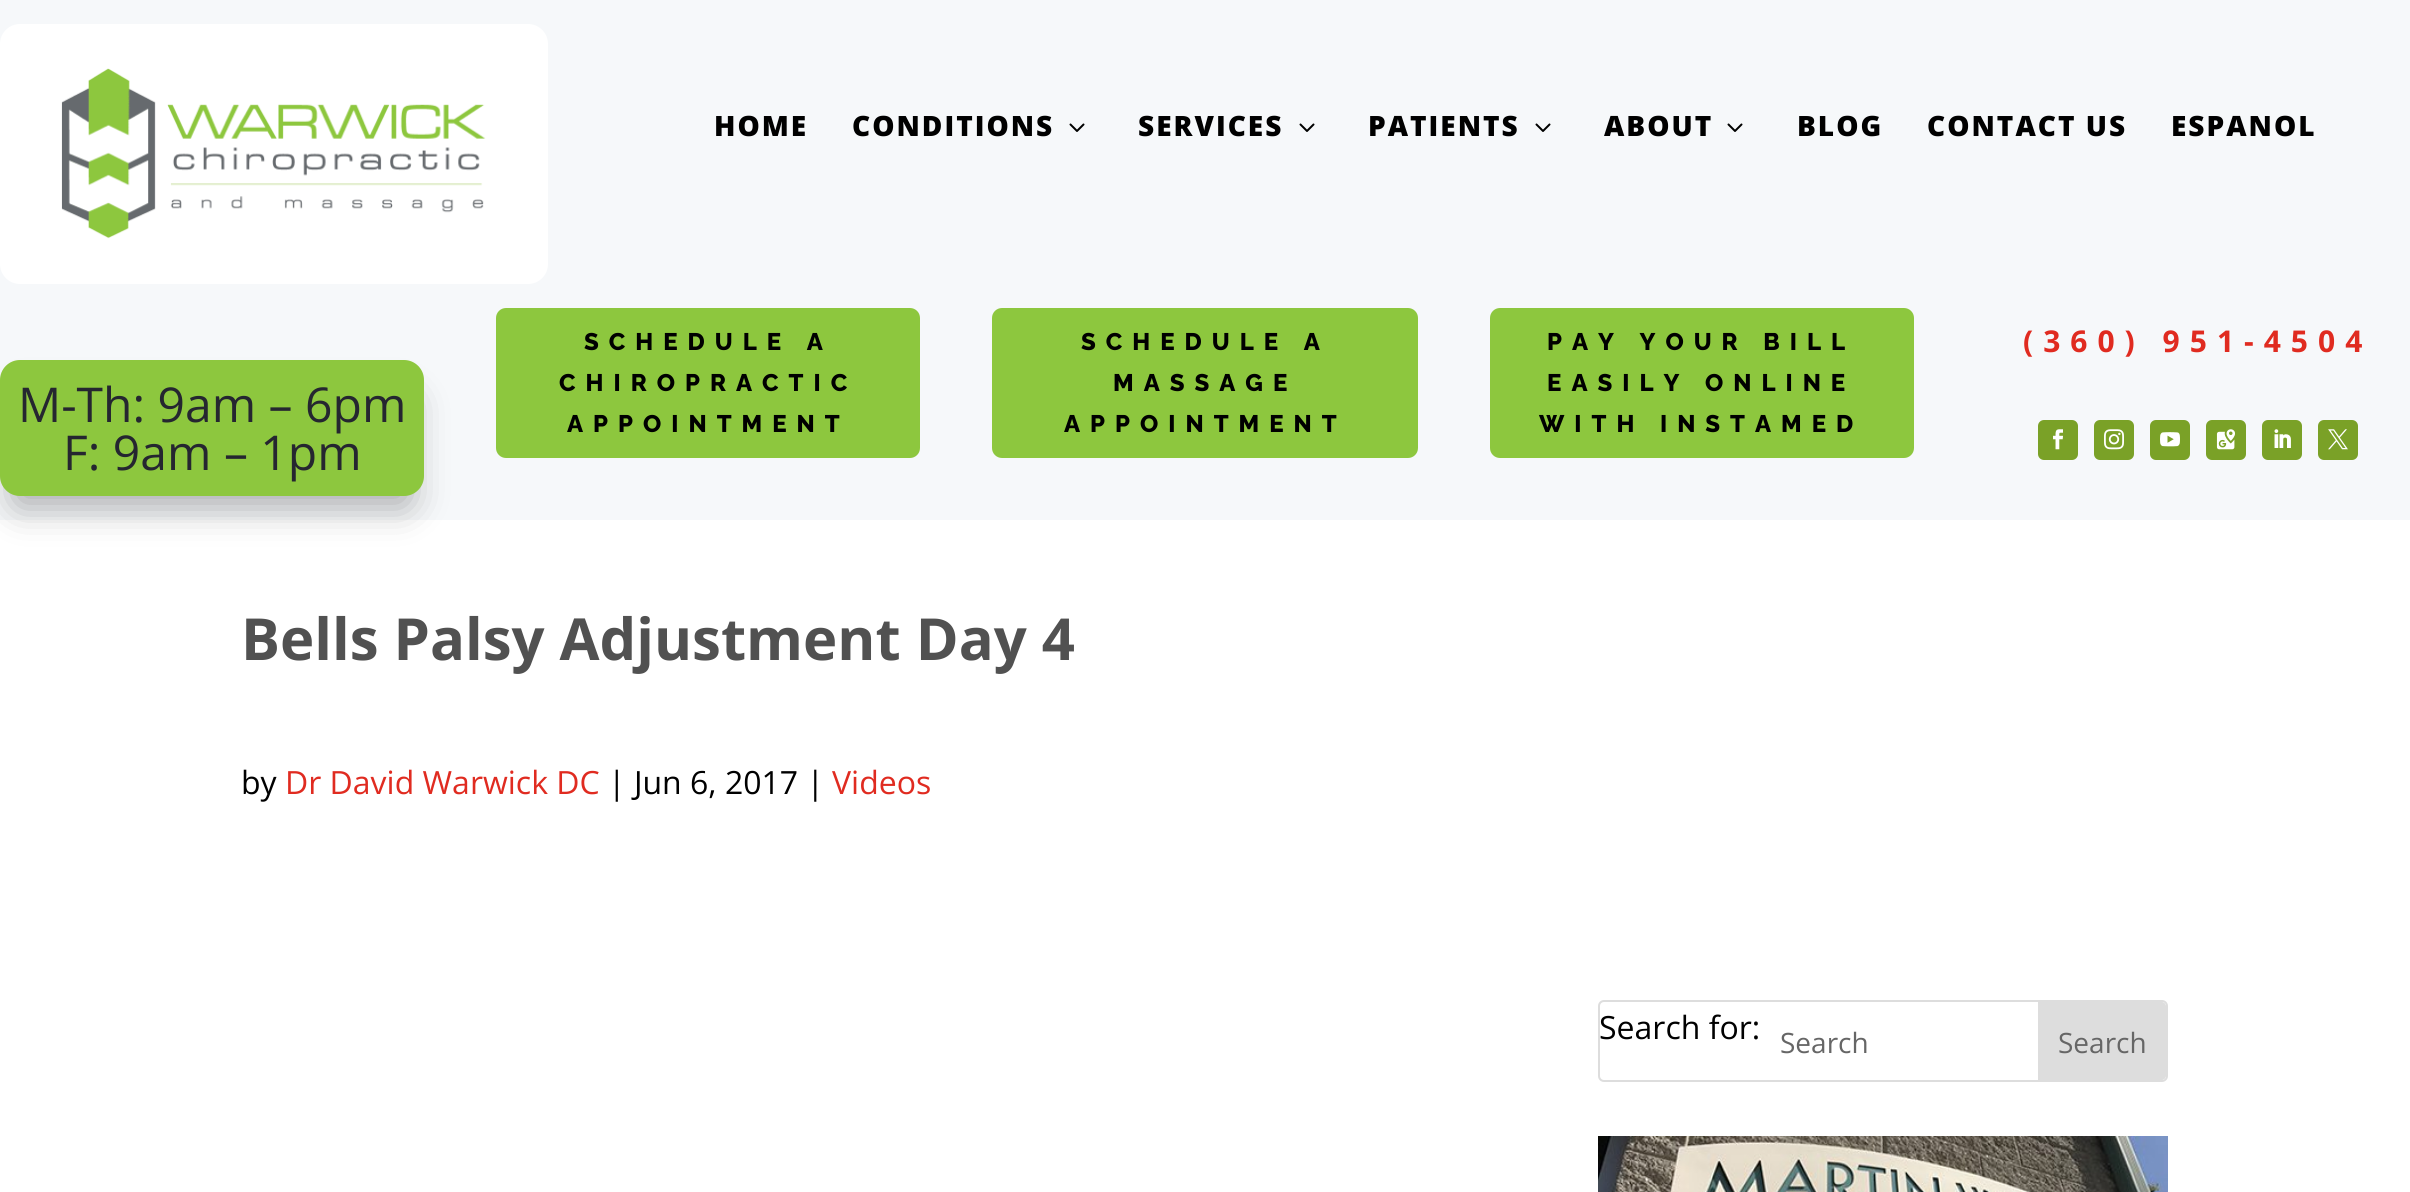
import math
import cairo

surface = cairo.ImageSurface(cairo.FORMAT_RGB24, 2410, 1192)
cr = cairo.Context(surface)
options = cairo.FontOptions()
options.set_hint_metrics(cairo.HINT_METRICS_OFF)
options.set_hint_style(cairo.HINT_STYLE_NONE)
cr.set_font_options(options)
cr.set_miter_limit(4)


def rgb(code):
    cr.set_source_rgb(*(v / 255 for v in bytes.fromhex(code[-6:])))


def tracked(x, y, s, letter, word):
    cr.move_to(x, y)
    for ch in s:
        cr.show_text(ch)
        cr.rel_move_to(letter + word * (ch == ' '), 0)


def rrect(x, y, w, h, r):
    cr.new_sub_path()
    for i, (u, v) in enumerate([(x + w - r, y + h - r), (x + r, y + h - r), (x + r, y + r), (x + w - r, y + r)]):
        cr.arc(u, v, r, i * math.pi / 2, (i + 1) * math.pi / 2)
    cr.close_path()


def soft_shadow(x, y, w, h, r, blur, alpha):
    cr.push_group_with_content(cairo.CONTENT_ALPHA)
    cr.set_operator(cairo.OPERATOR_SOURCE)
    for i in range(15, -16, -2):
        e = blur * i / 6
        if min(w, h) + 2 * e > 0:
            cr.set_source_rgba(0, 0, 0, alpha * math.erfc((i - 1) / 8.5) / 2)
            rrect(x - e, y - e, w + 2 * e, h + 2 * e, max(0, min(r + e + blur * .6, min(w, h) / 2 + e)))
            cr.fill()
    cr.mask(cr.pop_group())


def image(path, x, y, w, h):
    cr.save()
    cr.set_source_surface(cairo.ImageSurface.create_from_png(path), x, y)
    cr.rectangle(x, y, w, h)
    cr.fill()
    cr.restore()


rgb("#ffffff")
cr.paint()
rgb("#f6f8fa")
cr.rectangle(0, 0, 2410, 520)
cr.fill()
rgb("#ffffff")
rrect(0, 24, 548, 260, 20)
cr.fill()
image("img/1.png", 61, 68, 425, 171)
image("img/2.png", 1069, 123, 16, 9)
image("img/2.png", 1299, 123, 16, 9)
image("img/2.png", 1535, 123, 16, 9)
image("img/2.png", 1727, 123, 16, 9)
rgb("#000000")
soft_shadow(12, 396, 400, 112, 8, 18, 0.3)
rgb("#8dc73e")
rrect(0, 360, 424, 136, 20)
cr.fill()
rrect(496, 308, 424, 150, 10)
cr.fill()
rrect(992, 308, 426, 150, 10)
cr.fill()
rrect(1490, 308, 424, 150, 10)
cr.fill()
rgb("#7aa127")
rrect(2038, 420, 40, 40, 6)
cr.fill()
image("img/3.png", 2053, 429, 10, 21)
rrect(2094, 420, 40, 40, 6)
cr.fill()
image("img/4.png", 2104, 429, 20, 21)
rrect(2150, 420, 40, 40, 6)
cr.fill()
image("img/5.png", 2160, 432, 20, 15)
rrect(2206, 420, 40, 40, 6)
cr.fill()
image("img/6.png", 2216, 429, 19, 21)
rrect(2262, 420, 40, 40, 6)
cr.fill()
image("img/7.png", 2274, 429, 17, 19)
rrect(2318, 420, 40, 40, 6)
cr.fill()
image("img/8.png", 2328, 429, 20, 21)
rrect(1599, 1001, 568, 80, 5)
rgb("#dddddd")
cr.stroke()
cr.new_path()
cr.move_to(2038, 1002)
cr.line_to(2162, 1002)
cr.curve_to(2164, 1002, 2166, 1004, 2166, 1006)
cr.line_to(2166, 1076)
cr.curve_to(2166, 1078, 2164, 1080, 2162, 1080)
cr.line_to(2038, 1080)
cr.close_path()
cr.fill()
image("img/9.png", 1598, 1136, 570, 56)
cr.select_font_face("Open Sans ExtraBold")
cr.set_font_size(28)
rgb("#000000")
for x, y, s in [
    (714, 136, "HOME"),
    (852, 136, "CONDITIONS"),
    (1138, 136, "SERVICES"),
    (1368, 136, "PATIENTS"),
    (1604, 136, "ABOUT"),
    (1797, 136, "BLOG"),
    (1927, 136, "CONTACT US"),
    (2171, 136, "ESPANOL"),
]:
    tracked(x, y, s, 2, 0)
cr.select_font_face("Open Sans")
cr.set_font_size(48)
rgb("#252630")
cr.move_to(18, 422)
cr.show_text("M-Th: 9am – 6pm")
cr.move_to(63, 470)
cr.show_text("F: 9am – 1pm")
cr.select_font_face("Raleway ExtraBold")
cr.set_font_size(24)
rgb("#000000")
for x, y, s in [
    (584, 350, "SCHEDULE A"),
    (559, 391, "CHIROPRACTIC"),
    (567, 432, "APPOINTMENT"),
    (1081, 350, "SCHEDULE A"),
    (1113, 391, "MASSAGE"),
    (1064, 432, "APPOINTMENT"),
    (1547, 350, "PAY YOUR BILL"),
    (1547, 391, "EASILY ONLINE"),
    (1539, 432, "WITH INSTAMED"),
]:
    tracked(x, y, s, 10, 0)
cr.select_font_face("Open Sans", cairo.FONT_SLANT_NORMAL, cairo.FONT_WEIGHT_BOLD)
cr.set_font_size(30)
rgb("#e02b20")
tracked(2023, 352, "(360) 951-4504", 10, 0)
cr.set_font_size(58)
rgb("#515151")
cr.move_to(241, 660)
cr.show_text("Bells Palsy Adjustment Day 4")
cr.select_font_face("Open Sans")
cr.set_font_size(32)
rgb("#000000")
cr.move_to(241, 794)
cr.show_text("by")
rgb("#e02b20")
cr.move_to(285, 794)
cr.show_text("Dr David Warwick DC")
rgb("#000000")
cr.move_to(608, 794)
cr.show_text("| Jun 6, 2017 |")
rgb("#e02b20")
cr.move_to(832, 794)
cr.show_text("Videos")
rgb("#000000")
cr.move_to(1599, 1039)
cr.show_text("Search for:")
cr.set_font_size(28)
rgb("#666666")
cr.move_to(1780, 1053)
cr.show_text("Search")
cr.move_to(2058, 1053)
cr.show_text("Search")
surface.write_to_png("page.png")
